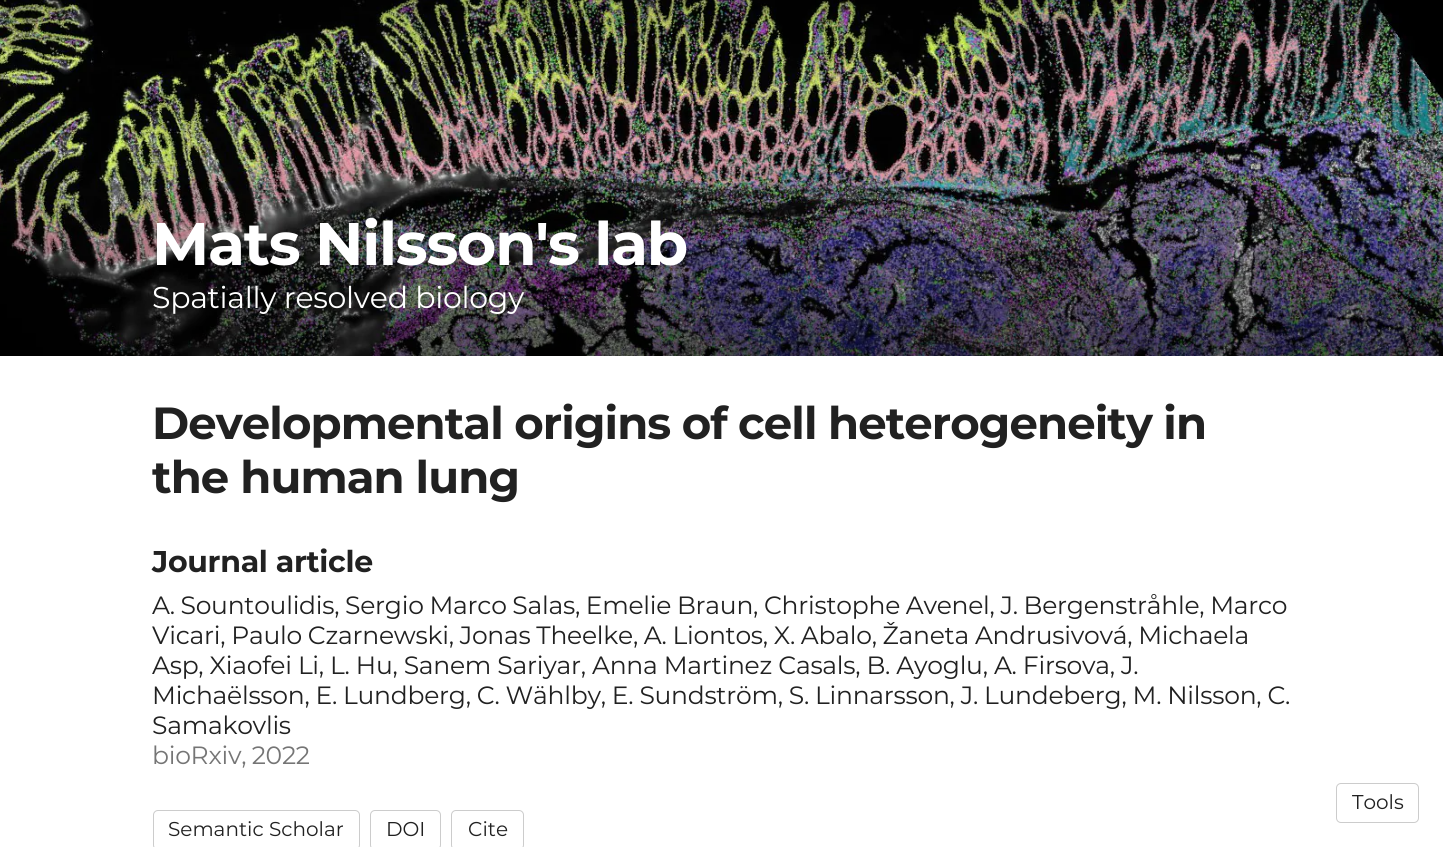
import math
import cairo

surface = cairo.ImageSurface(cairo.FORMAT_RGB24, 1443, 847)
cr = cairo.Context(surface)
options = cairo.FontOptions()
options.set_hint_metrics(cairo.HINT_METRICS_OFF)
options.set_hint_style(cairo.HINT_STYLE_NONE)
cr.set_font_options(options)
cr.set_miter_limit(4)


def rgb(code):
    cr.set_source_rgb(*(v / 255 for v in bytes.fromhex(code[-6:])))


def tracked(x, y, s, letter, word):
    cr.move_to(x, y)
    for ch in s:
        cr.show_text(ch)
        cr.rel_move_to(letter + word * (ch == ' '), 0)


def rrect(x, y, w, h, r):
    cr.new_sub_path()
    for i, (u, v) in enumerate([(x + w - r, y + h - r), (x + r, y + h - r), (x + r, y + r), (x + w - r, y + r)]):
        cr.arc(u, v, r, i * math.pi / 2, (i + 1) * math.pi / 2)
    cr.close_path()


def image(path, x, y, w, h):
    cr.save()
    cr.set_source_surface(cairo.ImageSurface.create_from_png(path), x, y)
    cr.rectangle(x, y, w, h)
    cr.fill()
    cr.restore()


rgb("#ffffff")
cr.paint()
image("img/1.png", 0, 0, 1443, 356)
rrect(153.5, 810.5, 206, 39, 4.5)
rgb("#cccccc")
cr.set_line_width(1)
cr.stroke()
rrect(370.5, 810.5, 70, 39, 4.5)
cr.stroke()
rrect(451.5, 810.5, 72, 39, 4.5)
cr.stroke()
rrect(1336.5, 783.5, 82, 39, 4.5)
cr.stroke()
cr.select_font_face("Montserrat", cairo.FONT_SLANT_NORMAL, cairo.FONT_WEIGHT_BOLD)
cr.set_font_size(60)
rgb("#ffffff")
tracked(152, 265, "Mats Nilsson's lab", -1.25, 0)
cr.select_font_face("Montserrat")
cr.set_font_size(30)
tracked(152, 308, "Spatially resolved biology", -0.3, 0)
cr.select_font_face("Montserrat", cairo.FONT_SLANT_NORMAL, cairo.FONT_WEIGHT_BOLD)
cr.set_font_size(45)
rgb("#212121")
tracked(152, 439, "Developmental origins of cell heterogeneity in", -0.9, -0.5)
tracked(152, 493, "the human lung", -0.9, 0)
cr.set_font_size(30)
tracked(152, 572, "Journal article", -0.3, 0)
cr.select_font_face("Montserrat")
cr.set_font_size(25)
tracked(152, 614, "A. Sountoulidis, Sergio Marco Salas, Emelie Braun, Christophe Avenel, J. Bergenstråhle, Marco", -0.25, -0.5)
tracked(152, 644, "Vicari, Paulo Czarnewski, Jonas Theelke, A. Liontos, X. Abalo, Žaneta Andrusivová, Michaela", -0.25, -0.4)
tracked(152, 674, "Asp, Xiaofei Li, L. Hu, Sanem Sariyar, Anna Martinez Casals, B. Ayoglu, A. Firsova, J.", -0.25, -0.1)
tracked(152, 704, "Michaëlsson, E. Lundberg, C. Wählby, E. Sundström, S. Linnarsson, J. Lundeberg, M. Nilsson, C.", -0.25, -0.25)
tracked(152, 734, "Samakovlis", -0.25, 0)
rgb("#757575")
tracked(152, 764, "bioRxiv, 2022", -0.25, -1)
cr.set_font_size(20)
rgb("#212121")
for x, y, s in [
    (168, 836, "Semantic Scholar"),
    (386, 836, "DOI"),
    (468, 836, "Cite"),
    (1352, 809, "Tools"),
]:
    cr.move_to(x, y)
    cr.show_text(s)
surface.write_to_png("page.png")
